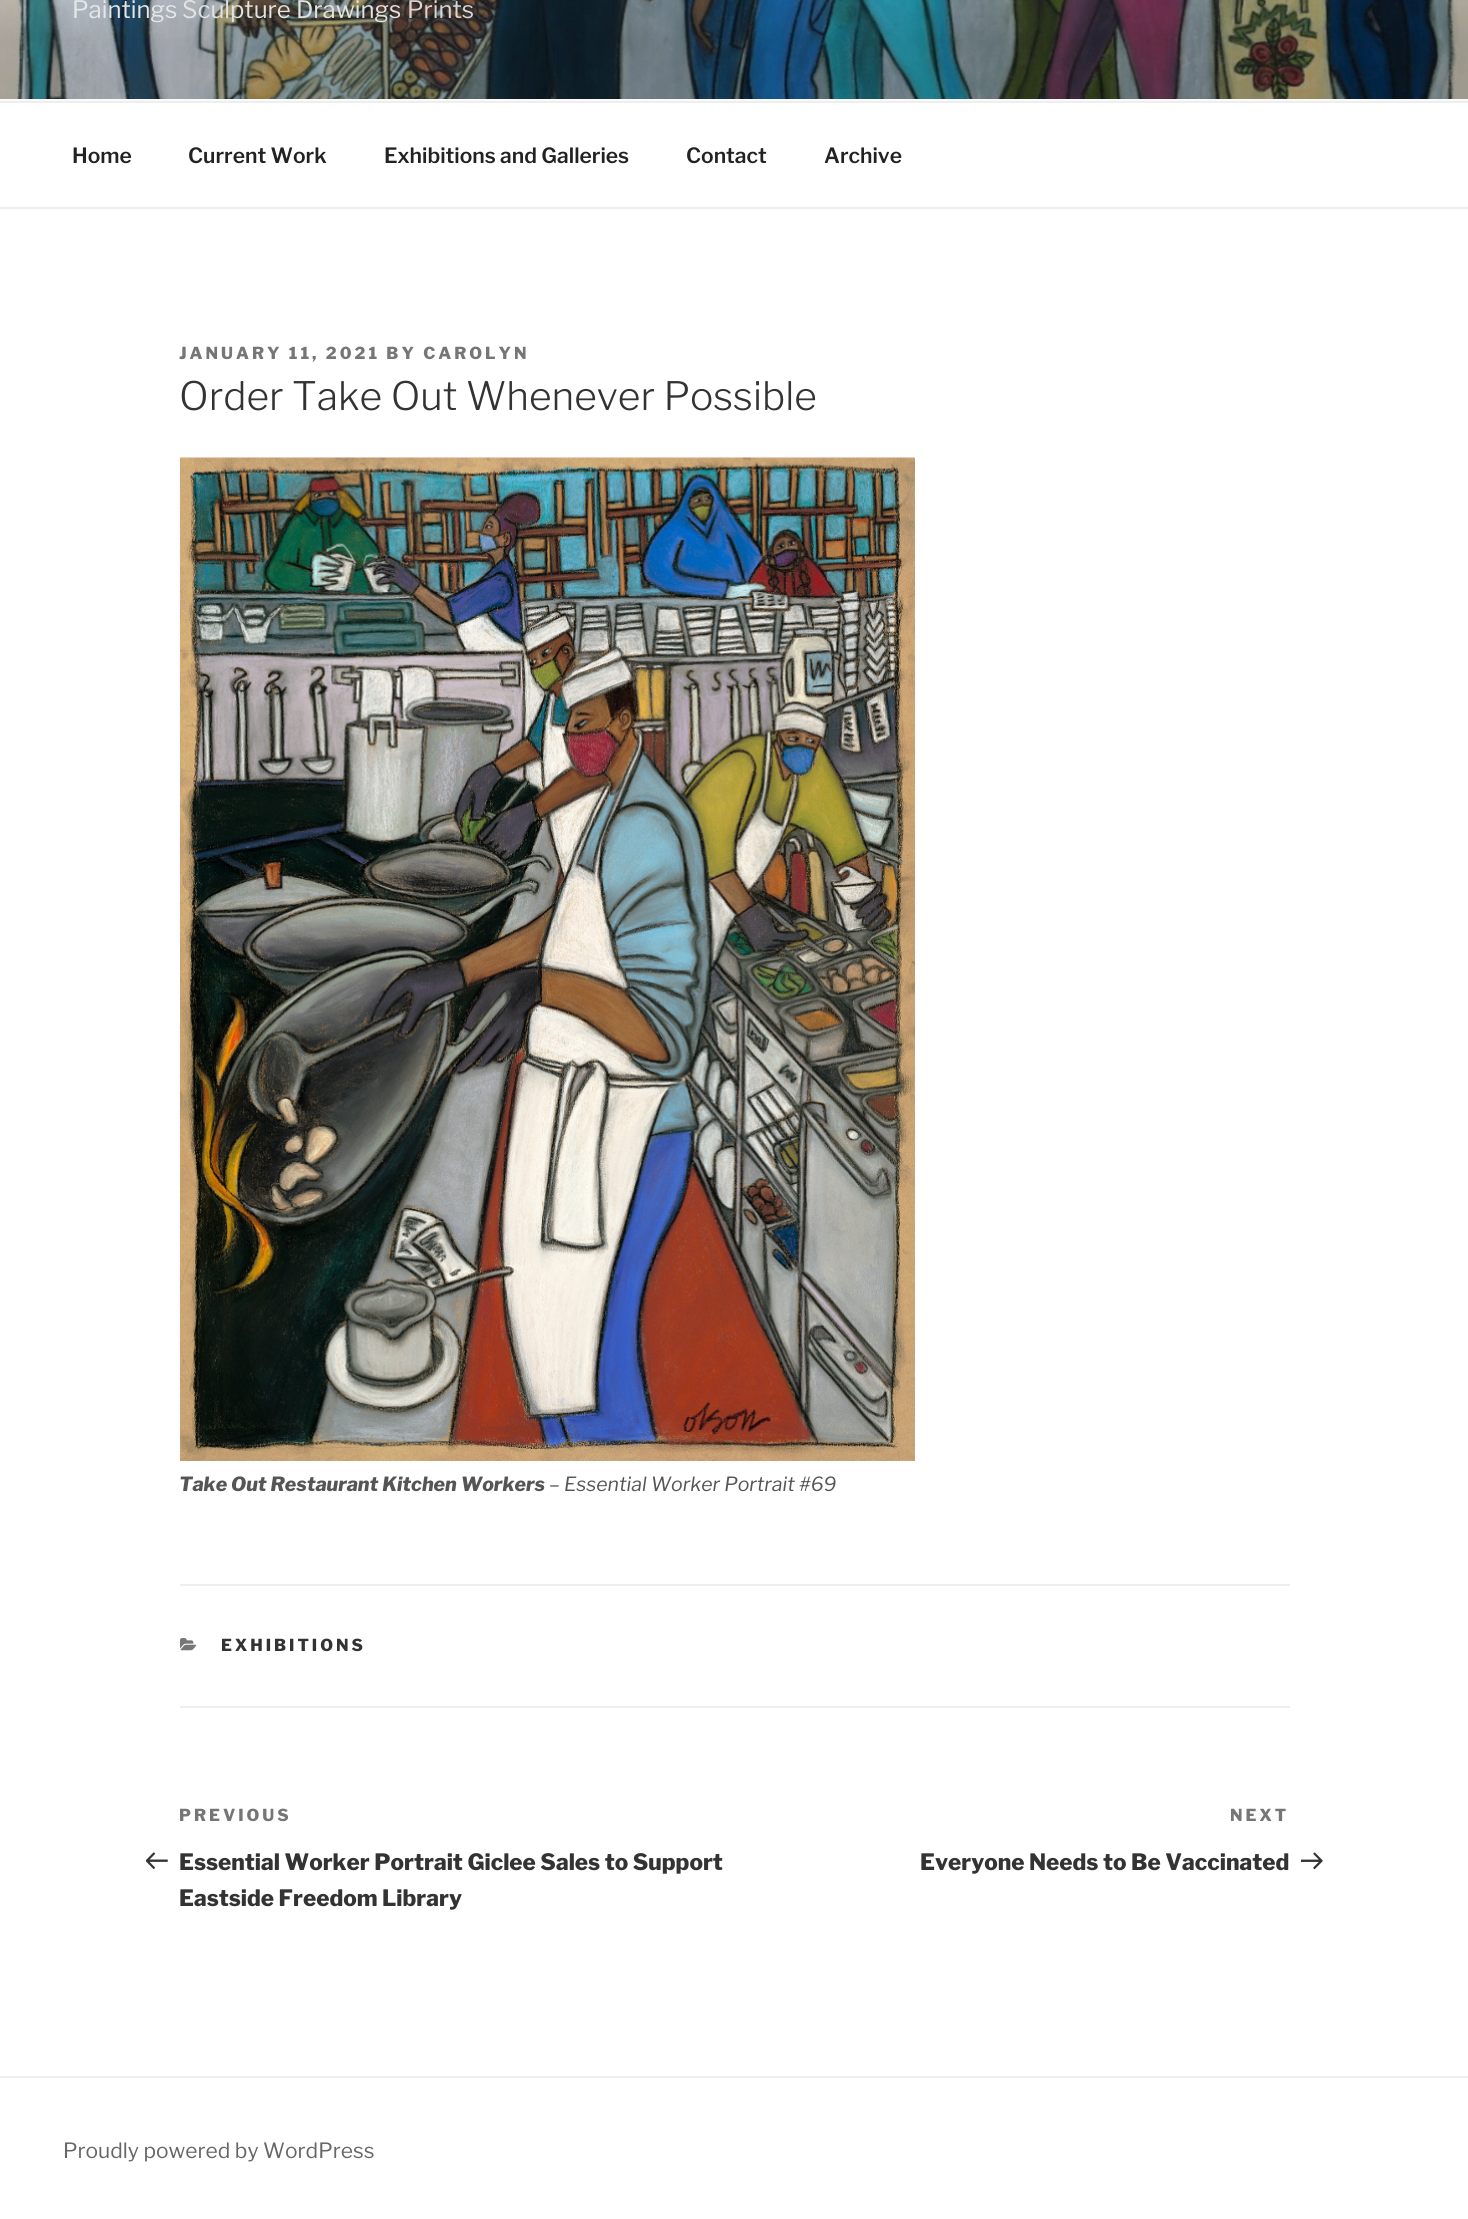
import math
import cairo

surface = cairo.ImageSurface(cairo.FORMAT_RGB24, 1468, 2219)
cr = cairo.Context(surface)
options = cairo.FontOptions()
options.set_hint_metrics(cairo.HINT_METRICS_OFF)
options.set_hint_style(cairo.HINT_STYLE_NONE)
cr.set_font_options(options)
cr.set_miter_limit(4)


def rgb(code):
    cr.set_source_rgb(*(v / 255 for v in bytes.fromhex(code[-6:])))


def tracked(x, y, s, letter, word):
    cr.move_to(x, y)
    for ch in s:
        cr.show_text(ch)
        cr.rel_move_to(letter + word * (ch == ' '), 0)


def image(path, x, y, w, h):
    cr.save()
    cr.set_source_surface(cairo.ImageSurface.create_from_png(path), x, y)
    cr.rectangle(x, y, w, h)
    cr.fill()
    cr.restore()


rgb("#ffffff")
cr.paint()
rgb("#fafafa")
cr.rectangle(0, 99, 1468, 2)
cr.fill()
image("img/1.png", 0, 0, 1468, 99)
rgb("#eeeeee")
cr.rectangle(0, 101, 1468, 2)
cr.fill()
cr.rectangle(0, 207, 1468, 2)
cr.fill()
image("img/2.png", 180, 457, 735, 1004)
cr.rectangle(180, 1584, 1110, 2)
cr.fill()
cr.rectangle(180, 1706, 1110, 2)
cr.fill()
image("img/3.png", 180, 1638, 17, 13)
image("img/4.png", 146, 1852, 22, 18)
image("img/5.png", 1301, 1852, 22, 18)
cr.rectangle(0, 2076, 1468, 2)
cr.fill()
cr.select_font_face("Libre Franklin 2 Thin")
cr.set_font_size(24)
rgb("#e4e7e9")
cr.move_to(72, 18)
cr.show_text("Paintings")
rgb("#e2e2e0")
cr.move_to(182, 18)
cr.show_text("Sculpture")
cr.move_to(296, 18)
cr.show_text("Drawings")
rgb("#d9d7d6")
cr.move_to(407, 18)
cr.show_text("Prints")
cr.select_font_face("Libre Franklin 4 Thin")
cr.set_font_size(21)
rgb("#222222")
for x, y, s in [
    (72, 163, "Home"),
    (188, 163, "Current Work"),
    (384, 163, "Exhibitions and Galleries"),
    (686, 163, "Contact"),
    (824, 163, "Archive"),
]:
    cr.move_to(x, y)
    cr.show_text(s)
cr.select_font_face("Libre Franklin Thin")
cr.set_font_size(16.5)
rgb("#767676")
tracked(179, 359, "JANUARY 11, 2021 BY CAROLYN", 3, 0)
cr.select_font_face("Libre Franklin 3 Thin")
cr.set_font_size(39)
rgb("#333333")
cr.move_to(179, 410)
cr.show_text("Order Take Out Whenever Possible")
cr.select_font_face("Libre Franklin Thin", cairo.FONT_SLANT_ITALIC)
cr.set_font_size(19.5)
rgb("#555555")
cr.move_to(179, 1491)
cr.show_text("Take Out Restaurant Kitchen Workers")
cr.select_font_face("Libre Franklin 2 Thin", cairo.FONT_SLANT_ITALIC)
cr.move_to(549, 1491)
cr.show_text("– Essential Worker Portrait #69")
cr.select_font_face("Libre Franklin Thin")
cr.set_font_size(16.5)
rgb("#333333")
tracked(221, 1651, "EXHIBITIONS", 3, 0)
rgb("#767676")
tracked(179, 1821, "PREVIOUS", 3, 0)
cr.set_font_size(22.5)
rgb("#333333")
cr.move_to(179, 1870)
cr.show_text("Essential Worker Portrait Giclee Sales to Support")
cr.move_to(179, 1906)
cr.show_text("Eastside Freedom Library")
cr.set_font_size(16.5)
rgb("#767676")
tracked(1230, 1821, "NEXT", 3, 0)
cr.set_font_size(22.5)
rgb("#333333")
cr.move_to(920, 1870)
cr.show_text("Everyone Needs to Be Vaccinated")
cr.select_font_face("Libre Franklin 2 Thin")
cr.set_font_size(21)
rgb("#666666")
cr.move_to(63, 2158)
cr.show_text("Proudly powered by WordPress")
surface.write_to_png("page.png")
